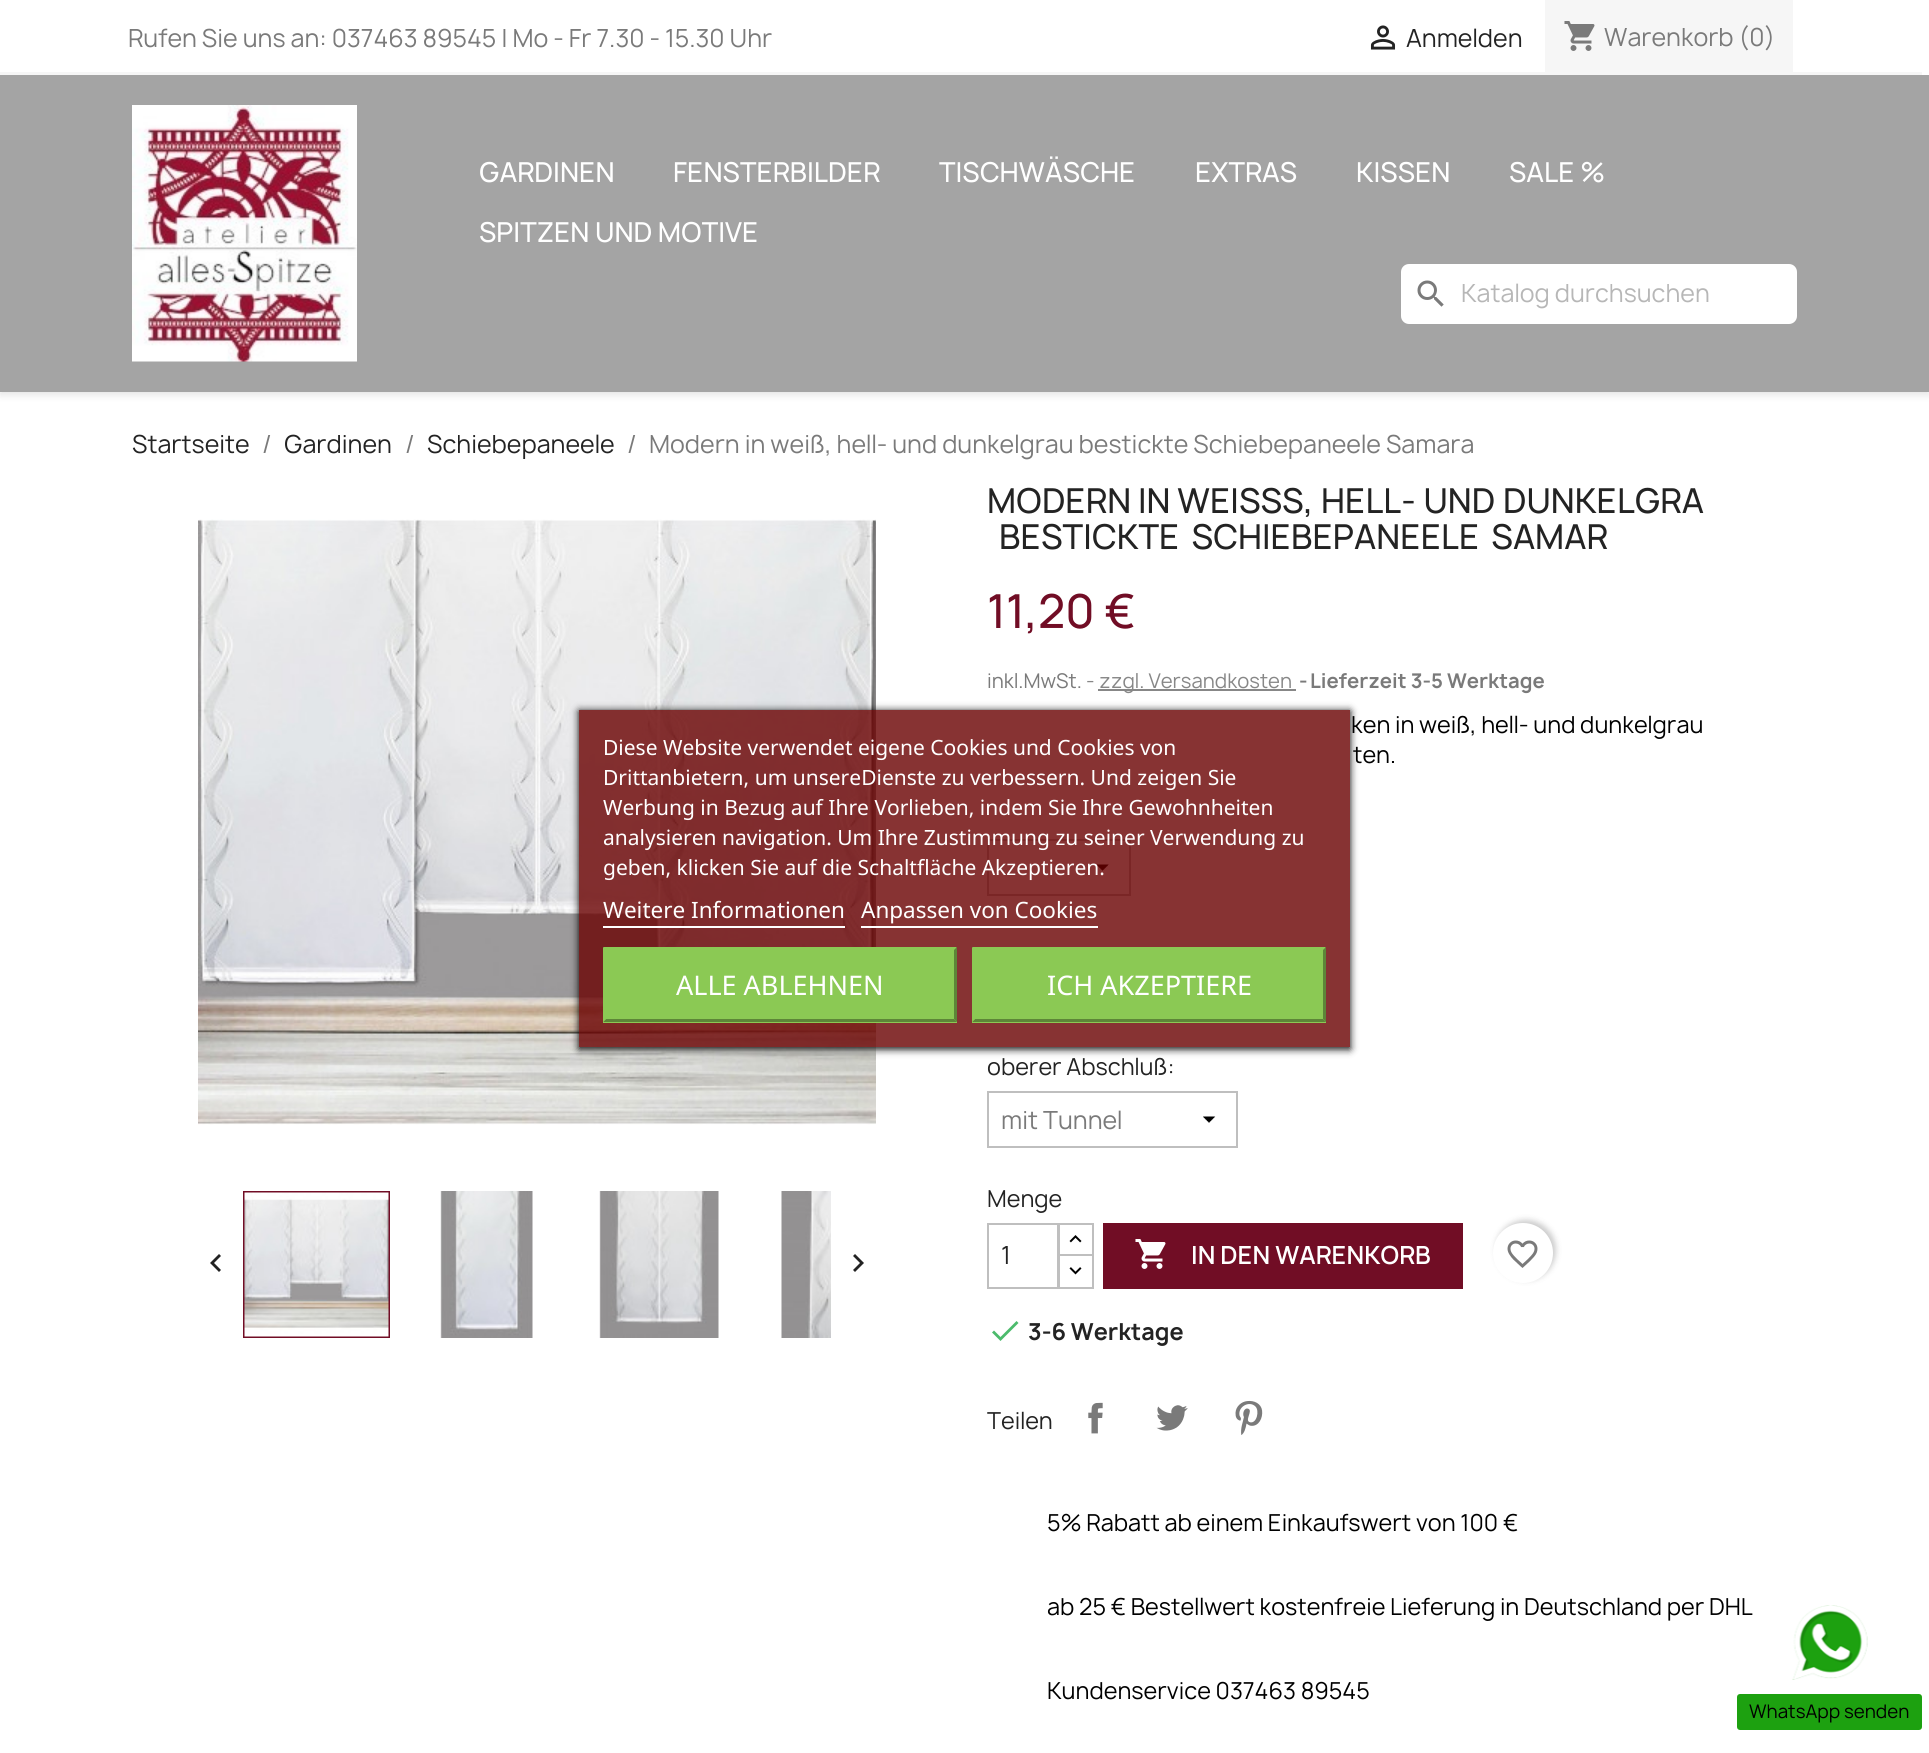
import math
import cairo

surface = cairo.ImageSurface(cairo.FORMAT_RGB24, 1929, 1753)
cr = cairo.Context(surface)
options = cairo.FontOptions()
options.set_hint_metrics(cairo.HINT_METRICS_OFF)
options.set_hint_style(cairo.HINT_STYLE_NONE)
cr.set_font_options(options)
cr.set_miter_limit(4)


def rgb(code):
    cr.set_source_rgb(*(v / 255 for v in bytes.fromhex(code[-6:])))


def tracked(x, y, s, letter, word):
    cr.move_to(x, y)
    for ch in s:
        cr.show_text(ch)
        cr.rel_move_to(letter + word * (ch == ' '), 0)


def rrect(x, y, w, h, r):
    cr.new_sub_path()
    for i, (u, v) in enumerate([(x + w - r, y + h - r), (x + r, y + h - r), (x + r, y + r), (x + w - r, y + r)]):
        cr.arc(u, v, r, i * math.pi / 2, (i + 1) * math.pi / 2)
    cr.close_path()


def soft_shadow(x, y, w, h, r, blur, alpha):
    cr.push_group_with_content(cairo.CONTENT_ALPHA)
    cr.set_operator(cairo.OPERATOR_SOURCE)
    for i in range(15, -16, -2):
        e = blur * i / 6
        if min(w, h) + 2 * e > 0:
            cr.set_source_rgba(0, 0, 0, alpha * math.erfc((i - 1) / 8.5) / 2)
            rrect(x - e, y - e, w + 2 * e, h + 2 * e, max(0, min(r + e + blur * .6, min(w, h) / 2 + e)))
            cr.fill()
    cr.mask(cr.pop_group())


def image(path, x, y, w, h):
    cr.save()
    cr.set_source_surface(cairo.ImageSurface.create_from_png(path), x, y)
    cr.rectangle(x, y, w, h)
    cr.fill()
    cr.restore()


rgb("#ffffff")
cr.paint()
rgb("#000000")
soft_shadow(0, 3, 1929, 392, 0, 4, 0.11)
rgb("#ffffff")
cr.rectangle(0, 0, 1929, 75)
cr.fill()
rgb("#f6f6f6")
cr.rectangle(0, 72, 1922, 3)
cr.fill()
image("img/1.png", 1370, 25, 26, 25)
cr.rectangle(1545, 0, 248, 72)
cr.fill()
image("img/2.png", 1564, 21, 31, 30)
rgb("#a4a4a4")
cr.rectangle(0, 75, 1929, 317)
cr.fill()
image("img/3.png", 132, 105, 225, 257)
rgb("#ffffff")
rrect(1401, 264, 396, 60, 8)
cr.fill()
image("img/4.png", 1417, 280, 27, 27)
image("img/5.png", 198, 519, 678, 606)
cr.rectangle(244, 1192, 145, 145)
rgb("#710d25")
cr.stroke()
image("img/6.png", 440, 1191, 93, 147)
image("img/7.png", 599, 1191, 120, 147)
image("img/8.png", 781, 1191, 50, 147)
image("img/9.png", 244, 1192, 145, 145)
rgb("#232323")
cr.new_path()
cr.move_to(221, 1270)
cr.line_to(219, 1272)
cr.line_to(210, 1263)
cr.line_to(219, 1254)
cr.line_to(221, 1256)
cr.line_to(214, 1263)
cr.close_path()
cr.fill()
cr.new_path()
cr.move_to(853, 1270)
cr.line_to(860, 1263)
cr.line_to(853, 1256)
cr.line_to(855, 1254)
cr.line_to(864, 1263)
cr.line_to(855, 1272)
cr.close_path()
cr.fill()
rgb("#878787")
cr.rectangle(1098, 689, 198, 2)
cr.fill()
image("img/10.png", 1096, 864, 13, 7)
cr.rectangle(988, 840, 142, 55)
rgb("#bfbfbf")
cr.stroke()
image("img/11.png", 1203, 1116, 13, 7)
cr.rectangle(988, 1092, 249, 55)
cr.stroke()
cr.rectangle(1059, 1224, 34, 32)
cr.stroke()
rgb("#ffffff")
cr.rectangle(1060, 1256, 32, 1)
cr.fill()
cr.rectangle(1059, 1255, 34, 33)
rgb("#bfbfbf")
cr.stroke()
cr.rectangle(988, 1224, 70, 64)
cr.stroke()
image("img/12.png", 1069, 1235, 13, 8)
image("img/13.png", 1069, 1267, 13, 8)
rgb("#710d25")
cr.rectangle(1103, 1223, 360, 66)
cr.fill()
image("img/14.png", 1135, 1239, 31, 30)
rgb("#000000")
soft_shadow(1496, 1220, 60, 60, 30, 3, 0.2)
rgb("#ffffff")
cr.arc(1523, 1253, 30, 0, 2 * math.pi)
cr.fill()
image("img/15.png", 1507, 1240, 31, 28)
rgb("#4cbb6c")
cr.new_path()
cr.move_to(1000.5, 1337)
cr.line_to(1016.5, 1321)
cr.line_to(1018.5, 1323)
cr.line_to(1000.5, 1341)
cr.line_to(992, 1332.5)
cr.line_to(994, 1330.5)
cr.close_path()
cr.fill()
image("img/16.png", 1088, 1402, 15, 32)
image("img/17.png", 1156, 1405, 32, 26)
image("img/18.png", 1235, 1400, 28, 35)
cr.save()
cr.set_fill_rule(cairo.FILL_RULE_EVEN_ODD)
cr.new_path()
cr.move_to(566, 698)
cr.line_to(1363, 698)
cr.line_to(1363, 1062)
cr.line_to(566, 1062)
cr.close_path()
cr.move_to(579, 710)
cr.line_to(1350, 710)
cr.line_to(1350, 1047)
cr.line_to(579, 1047)
cr.close_path()
cr.clip()
rgb("#000000")
soft_shadow(579, 711, 771, 338, 0, 4, 1)
cr.restore()
cr.set_source_rgba(0.412, 0, 0, 0.8)
cr.rectangle(579, 710, 771, 337)
cr.fill()
rgb("#ffffff")
cr.rectangle(603, 926, 242, 2)
cr.rectangle(861, 926, 237, 2)
cr.fill()
rgb("#8bc954")
cr.rectangle(603, 948, 354, 75)
cr.fill()
cr.new_path()
cr.move_to(603, 947)
cr.line_to(957, 947)
cr.line_to(954, 950)
cr.line_to(606, 950)
cr.close_path()
cr.fill()
rgb("#5d8638")
cr.new_path()
cr.move_to(957, 947)
cr.line_to(957, 1022)
cr.line_to(954, 1019)
cr.line_to(954, 950)
cr.close_path()
cr.fill()
cr.new_path()
cr.move_to(957, 1022)
cr.line_to(603, 1022)
cr.line_to(606, 1019)
cr.line_to(954, 1019)
cr.close_path()
cr.fill()
rgb("#8bc954")
cr.new_path()
cr.move_to(603, 1022)
cr.line_to(603, 947)
cr.line_to(606, 950)
cr.line_to(606, 1019)
cr.close_path()
cr.fill()
cr.rectangle(972, 948, 354, 75)
cr.fill()
cr.new_path()
cr.move_to(972, 947)
cr.line_to(1326, 947)
cr.line_to(1323, 950)
cr.line_to(975, 950)
cr.close_path()
cr.fill()
rgb("#5d8638")
cr.new_path()
cr.move_to(1326, 947)
cr.line_to(1326, 1022)
cr.line_to(1323, 1019)
cr.line_to(1323, 950)
cr.close_path()
cr.fill()
cr.new_path()
cr.move_to(1326, 1022)
cr.line_to(972, 1022)
cr.line_to(975, 1019)
cr.line_to(1323, 1019)
cr.close_path()
cr.fill()
rgb("#8bc954")
cr.new_path()
cr.move_to(972, 1022)
cr.line_to(972, 947)
cr.line_to(975, 950)
cr.line_to(975, 1019)
cr.close_path()
cr.fill()
image("img/19.png", 1792, 1605, 76, 75)
rgb("#1da110")
rrect(1737, 1694, 185, 36, 3)
cr.fill()
cr.select_font_face("Manrope")
cr.set_font_size(24)
rgb("#7a7a7a")
cr.move_to(128, 47)
cr.show_text("Rufen Sie uns an: 037463 89545 | Mo - Fr 7.30 - 15.30 Uhr")
rgb("#232323")
cr.move_to(1406, 47)
cr.show_text("Anmelden")
rgb("#7a7a7a")
cr.move_to(1604, 46)
cr.show_text("Warenkorb (0)")
cr.select_font_face("Manrope Medium")
cr.set_font_size(26.4)
rgb("#ffffff")
for x, y, s in [
    (479, 182, "GARDINEN"),
    (673, 182, "FENSTERBILDER"),
    (939, 182, "TISCHWÄSCHE"),
    (1195, 182, "EXTRAS"),
    (1356, 182, "KISSEN"),
    (1509, 182, "SALE %"),
    (479, 242, "SPITZEN UND MOTIVE"),
]:
    cr.move_to(x, y)
    cr.show_text(s)
cr.select_font_face("Manrope")
cr.set_font_size(24)
rgb("#b7b7b7")
cr.move_to(1461, 302)
cr.show_text("Katalog durchsuchen")
rgb("#232323")
cr.move_to(132, 453)
cr.show_text("Startseite")
rgb("#7a7a7a")
cr.move_to(262, 453)
cr.show_text("/")
rgb("#232323")
cr.move_to(284, 453)
cr.show_text("Gardinen")
rgb("#7a7a7a")
cr.move_to(405, 453)
cr.show_text("/")
rgb("#232323")
cr.move_to(427, 453)
cr.show_text("Schiebepaneele")
rgb("#7a7a7a")
cr.move_to(627, 453)
cr.show_text("/")
cr.move_to(649, 453)
cr.show_text("Modern in weiß, hell- und dunkelgrau bestickte Schiebepaneele Samara")
cr.select_font_face("Manrope Medium")
cr.set_font_size(33)
rgb("#232323")
cr.move_to(987, 513)
cr.show_text("MODERN IN WEISS")
tracked(1282, 513, "S, HELL- UND DUNKELGRA", 0, 1)
tracked(999, 549, "BESTICKTE SCHIEBEPANEELE SAMAR", 0, 5)
cr.set_font_size(45)
rgb("#710d25")
cr.move_to(987, 628)
cr.show_text("11,20 €")
cr.select_font_face("Manrope")
cr.set_font_size(19.5)
rgb("#7a7a7a")
cr.move_to(987, 688)
cr.show_text("inkl.MwSt.")
rgb("#878787")
cr.move_to(1086, 688)
cr.show_text("-")
cr.move_to(1099, 688)
cr.show_text("zzgl. Versandkosten")
cr.select_font_face("Manrope", cairo.FONT_SLANT_NORMAL, cairo.FONT_WEIGHT_BOLD)
rgb("#7a7a7a")
cr.move_to(1299, 688)
cr.show_text("-")
cr.move_to(1310, 688)
cr.show_text("Lieferzeit 3-5 Werktage")
cr.select_font_face("Manrope")
cr.set_font_size(22.5)
rgb("#000000")
cr.move_to(1351, 733)
cr.show_text("ken in weiß, hell- und dunkelgrau")
cr.move_to(1353, 763)
cr.show_text("ten.")
rgb("#232323")
cr.move_to(987, 1075)
cr.show_text("oberer Abschluß:")
cr.set_font_size(24)
rgb("#7a7a7a")
cr.move_to(1001, 1129)
cr.show_text("mit Tunnel")
cr.set_font_size(22.5)
rgb("#232323")
cr.move_to(987, 1207)
cr.show_text("Menge")
cr.set_font_size(24)
cr.move_to(1001, 1264)
cr.show_text("1")
cr.select_font_face("Manrope SemiBold")
rgb("#ffffff")
cr.move_to(1191, 1264)
cr.show_text("IN DEN WARENKORB")
cr.select_font_face("Manrope", cairo.FONT_SLANT_NORMAL, cairo.FONT_WEIGHT_BOLD)
cr.set_font_size(22.5)
rgb("#232323")
cr.move_to(1028, 1340)
cr.show_text("3-6 Werktage")
cr.select_font_face("Manrope")
cr.move_to(987, 1429)
cr.show_text("Teilen")
rgb("#000000")
for x, y, s in [
    (1047, 1531, "5% Rabatt ab einem Einkaufswert von 100 €"),
    (1047, 1615, "ab 25 € Bestellwert kostenfreie Lieferung in Deutschland per DHL"),
    (1047, 1699, "Kundenservice 037463 89545"),
]:
    cr.move_to(x, y)
    cr.show_text(s)
cr.select_font_face("Noto Sans")
cr.set_font_size(21)
rgb("#ffffff")
for x, y, s in [
    (603, 755, "Diese Website verwendet eigene Cookies und Cookies von"),
    (603, 785, "Drittanbietern, um unsereDienste zu verbessern. Und zeigen Sie"),
    (603, 815, "Werbung in Bezug auf Ihre Vorlieben, indem Sie Ihre Gewohnheiten"),
    (603, 845, "analysieren navigation. Um Ihre Zustimmung zu seiner Verwendung zu"),
    (603, 875, "geben, klicken Sie auf die Schaltfläche Akzeptieren."),
]:
    cr.move_to(x, y)
    cr.show_text(s)
cr.set_font_size(22.5)
cr.move_to(603, 918)
cr.show_text("Weitere Informationen")
cr.move_to(861, 918)
cr.show_text("Anpassen von Cookies")
cr.set_font_size(27)
cr.move_to(676, 995)
cr.show_text("ALLE ABLEHNEN")
cr.move_to(1047, 995)
cr.show_text("ICH AKZEPTIERE")
cr.select_font_face("Manrope")
cr.set_font_size(18)
rgb("#000000")
cr.move_to(1749, 1718)
cr.show_text("WhatsApp senden")
surface.write_to_png("page.png")
